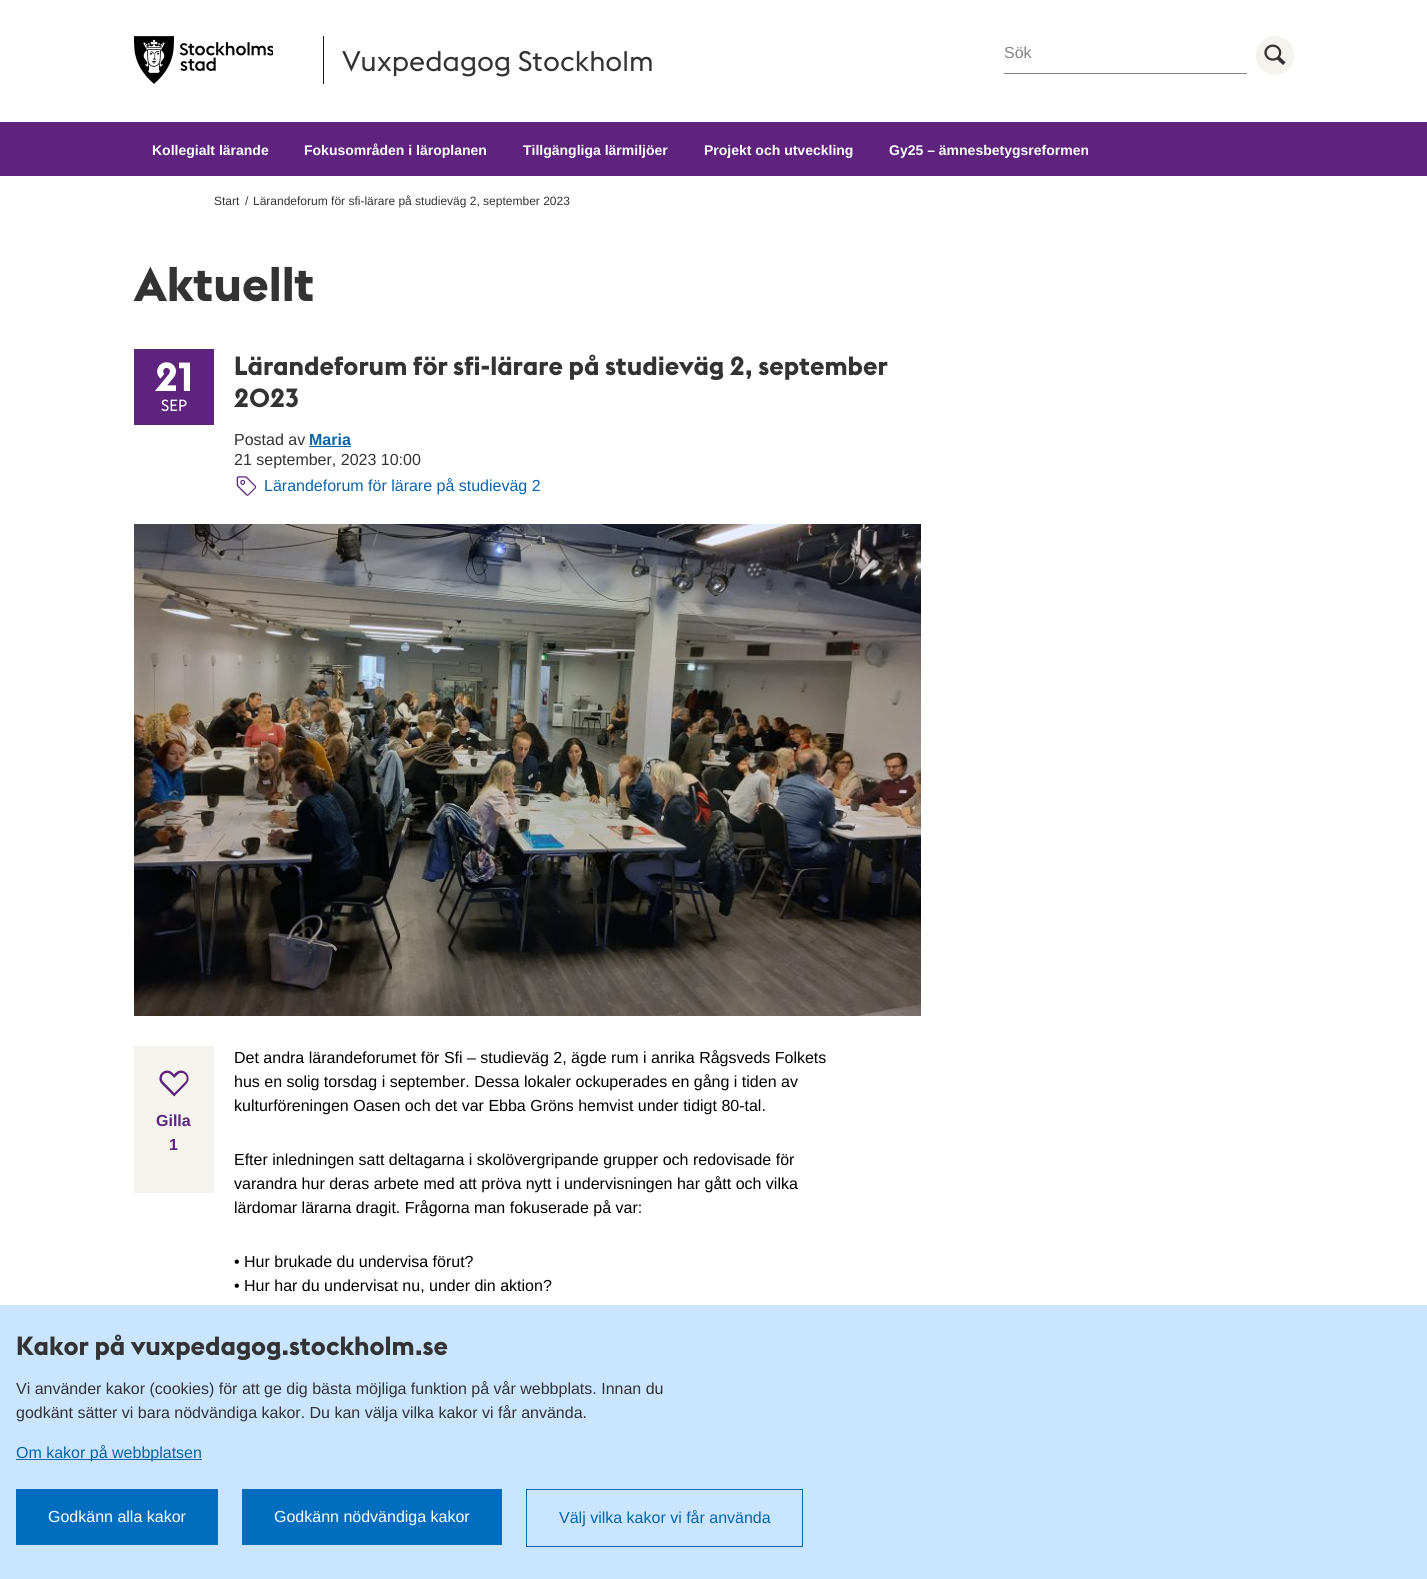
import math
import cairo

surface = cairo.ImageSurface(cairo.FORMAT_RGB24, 1427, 1579)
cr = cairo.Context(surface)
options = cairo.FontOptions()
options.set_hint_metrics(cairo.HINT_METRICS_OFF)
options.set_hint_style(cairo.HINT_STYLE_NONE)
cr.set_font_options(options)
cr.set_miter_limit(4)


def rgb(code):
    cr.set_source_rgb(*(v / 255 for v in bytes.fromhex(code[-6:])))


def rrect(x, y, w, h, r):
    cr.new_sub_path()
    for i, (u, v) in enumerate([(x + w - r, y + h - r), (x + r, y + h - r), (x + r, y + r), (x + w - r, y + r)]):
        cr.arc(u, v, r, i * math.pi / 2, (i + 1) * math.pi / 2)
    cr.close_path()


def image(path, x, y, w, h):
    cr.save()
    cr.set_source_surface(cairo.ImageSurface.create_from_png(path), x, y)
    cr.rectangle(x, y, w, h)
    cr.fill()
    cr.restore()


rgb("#ffffff")
cr.paint()
image("img/1.png", 134, 36, 139, 48)
rgb("#1b1b1b")
cr.rectangle(323, 36, 1, 48)
cr.fill()
rgb("#848484")
cr.rectangle(1004, 73, 243, 1)
cr.fill()
rgb("#f5f3ee")
rrect(1256, 36, 38, 39, 19)
cr.fill()
image("img/2.png", 1264, 44, 22, 21)
for x, y, w, h, color in [
    (0, 122, 1427, 54, "#5d237d"),
    (134, 349, 80, 76, "#5d237d"),
    (309, 446, 42, 1, "#0664aa"),
]:
    rgb(color)
    cr.rectangle(x, y, w, h)
    cr.fill()
image("img/3.png", 236, 476, 21, 20)
image("img/4.png", 134, 524, 787, 492)
rgb("#f5f3ee")
cr.rectangle(134, 1046, 80, 147)
cr.fill()
image("img/5.png", 159, 1070, 30, 27)
for x, y, w, h, color in [
    (0, 1305, 1427, 274, "#cae5ff"),
    (16, 1459, 186, 1, "#0664aa"),
    (16, 1489, 202, 56, "#006ebf"),
    (242, 1489, 260, 56, "#006ebf"),
]:
    rgb(color)
    cr.rectangle(x, y, w, h)
    cr.fill()
cr.rectangle(526.5, 1489.5, 276, 57)
rgb("#0664aa")
cr.set_line_width(1)
cr.stroke()
cr.select_font_face("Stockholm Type")
cr.set_font_size(28)
rgb("#333333")
cr.move_to(342, 71)
cr.show_text("Vuxpedagog Stockholm")
cr.select_font_face("Liberation Sans")
cr.set_font_size(16)
rgb("#848484")
cr.move_to(1004, 58)
cr.show_text("Sök")
cr.select_font_face("Liberation Sans", cairo.FONT_SLANT_NORMAL, cairo.FONT_WEIGHT_BOLD)
cr.set_font_size(14)
rgb("#ffffff")
for x, y, s in [
    (152, 155, "Kollegialt lärande"),
    (304, 155, "Fokusområden i läroplanen"),
    (523, 155, "Tillgängliga lärmiljöer"),
    (704, 155, "Projekt och utveckling"),
    (889, 155, "Gy25 – ämnesbetygsreformen"),
]:
    cr.move_to(x, y)
    cr.show_text(s)
cr.select_font_face("Liberation Sans")
cr.set_font_size(12)
rgb("#333333")
for x, y, s in [
    (214, 205, "Start"),
    (245, 205, "/"),
    (253, 205, "Lärandeforum för sfi-lärare på studieväg 2, september 2023"),
]:
    cr.move_to(x, y)
    cr.show_text(s)
cr.select_font_face("Stockholm Type", cairo.FONT_SLANT_NORMAL, cairo.FONT_WEIGHT_BOLD)
cr.set_font_size(48)
cr.move_to(134, 301)
cr.show_text("Aktuellt")
cr.set_font_size(40)
rgb("#ffffff")
cr.move_to(155, 391)
cr.show_text("21")
cr.select_font_face("Stockholm Type")
cr.set_font_size(16)
cr.move_to(161, 411)
cr.show_text("SEP")
cr.select_font_face("Stockholm Type", cairo.FONT_SLANT_NORMAL, cairo.FONT_WEIGHT_BOLD)
cr.set_font_size(26)
rgb("#333333")
cr.move_to(234, 375)
cr.show_text("Lärandeforum för sfi-lärare på studieväg 2, september")
cr.move_to(234, 407)
cr.show_text("2023")
cr.select_font_face("Liberation Sans")
cr.set_font_size(16)
cr.move_to(234, 445)
cr.show_text("Postad av")
cr.select_font_face("Liberation Sans", cairo.FONT_SLANT_NORMAL, cairo.FONT_WEIGHT_BOLD)
rgb("#0664aa")
cr.move_to(309, 445)
cr.show_text("Maria")
cr.select_font_face("Liberation Sans")
rgb("#333333")
cr.move_to(234, 465)
cr.show_text("21 september, 2023 10:00")
rgb("#0664aa")
cr.move_to(264, 491)
cr.show_text("Lärandeforum för lärare på studieväg 2")
cr.select_font_face("Liberation Sans", cairo.FONT_SLANT_NORMAL, cairo.FONT_WEIGHT_BOLD)
rgb("#5d237d")
cr.move_to(156, 1126)
cr.show_text("Gilla")
cr.move_to(169, 1150)
cr.show_text("1")
cr.select_font_face("Liberation Sans")
rgb("#000000")
for x, y, s in [
    (234, 1063, "Det andra lärandeforumet för Sfi – studieväg 2, ägde rum i anrika Rågsveds Folkets"),
    (234, 1087, "hus en solig torsdag i september. Dessa lokaler ockuperades en gång i tiden av"),
    (234, 1111, "kulturföreningen Oasen och det var Ebba Gröns hemvist under tidigt 80-tal."),
    (234, 1165, "Efter inledningen satt deltagarna i skolövergripande grupper och redovisade för"),
    (234, 1189, "varandra hur deras arbete med att pröva nytt i undervisningen har gått och vilka"),
    (234, 1213, "lärdomar lärarna dragit. Frågorna man fokuserade på var:"),
    (234, 1267, "• Hur brukade du undervisa förut?"),
    (234, 1291, "• Hur har du undervisat nu, under din aktion?"),
]:
    cr.move_to(x, y)
    cr.show_text(s)
cr.select_font_face("Stockholm Type", cairo.FONT_SLANT_NORMAL, cairo.FONT_WEIGHT_BOLD)
cr.set_font_size(26)
rgb("#333333")
cr.move_to(16, 1355)
cr.show_text("Kakor på vuxpedagog.stockholm.se")
cr.select_font_face("Liberation Sans")
cr.set_font_size(16)
cr.move_to(16, 1394)
cr.show_text("Vi använder kakor (cookies) för att ge dig bästa möjliga funktion på vår webbplats. Innan du")
cr.move_to(16, 1418)
cr.show_text("godkänt sätter vi bara nödvändiga kakor. Du kan välja vilka kakor vi får använda.")
rgb("#0664aa")
cr.move_to(16, 1458)
cr.show_text("Om kakor på webbplatsen")
rgb("#ffffff")
cr.move_to(48, 1522)
cr.show_text("Godkänn alla kakor")
cr.move_to(274, 1522)
cr.show_text("Godkänn nödvändiga kakor")
rgb("#0664aa")
cr.move_to(559, 1523)
cr.show_text("Välj vilka kakor vi får använda")
surface.write_to_png("page.png")
